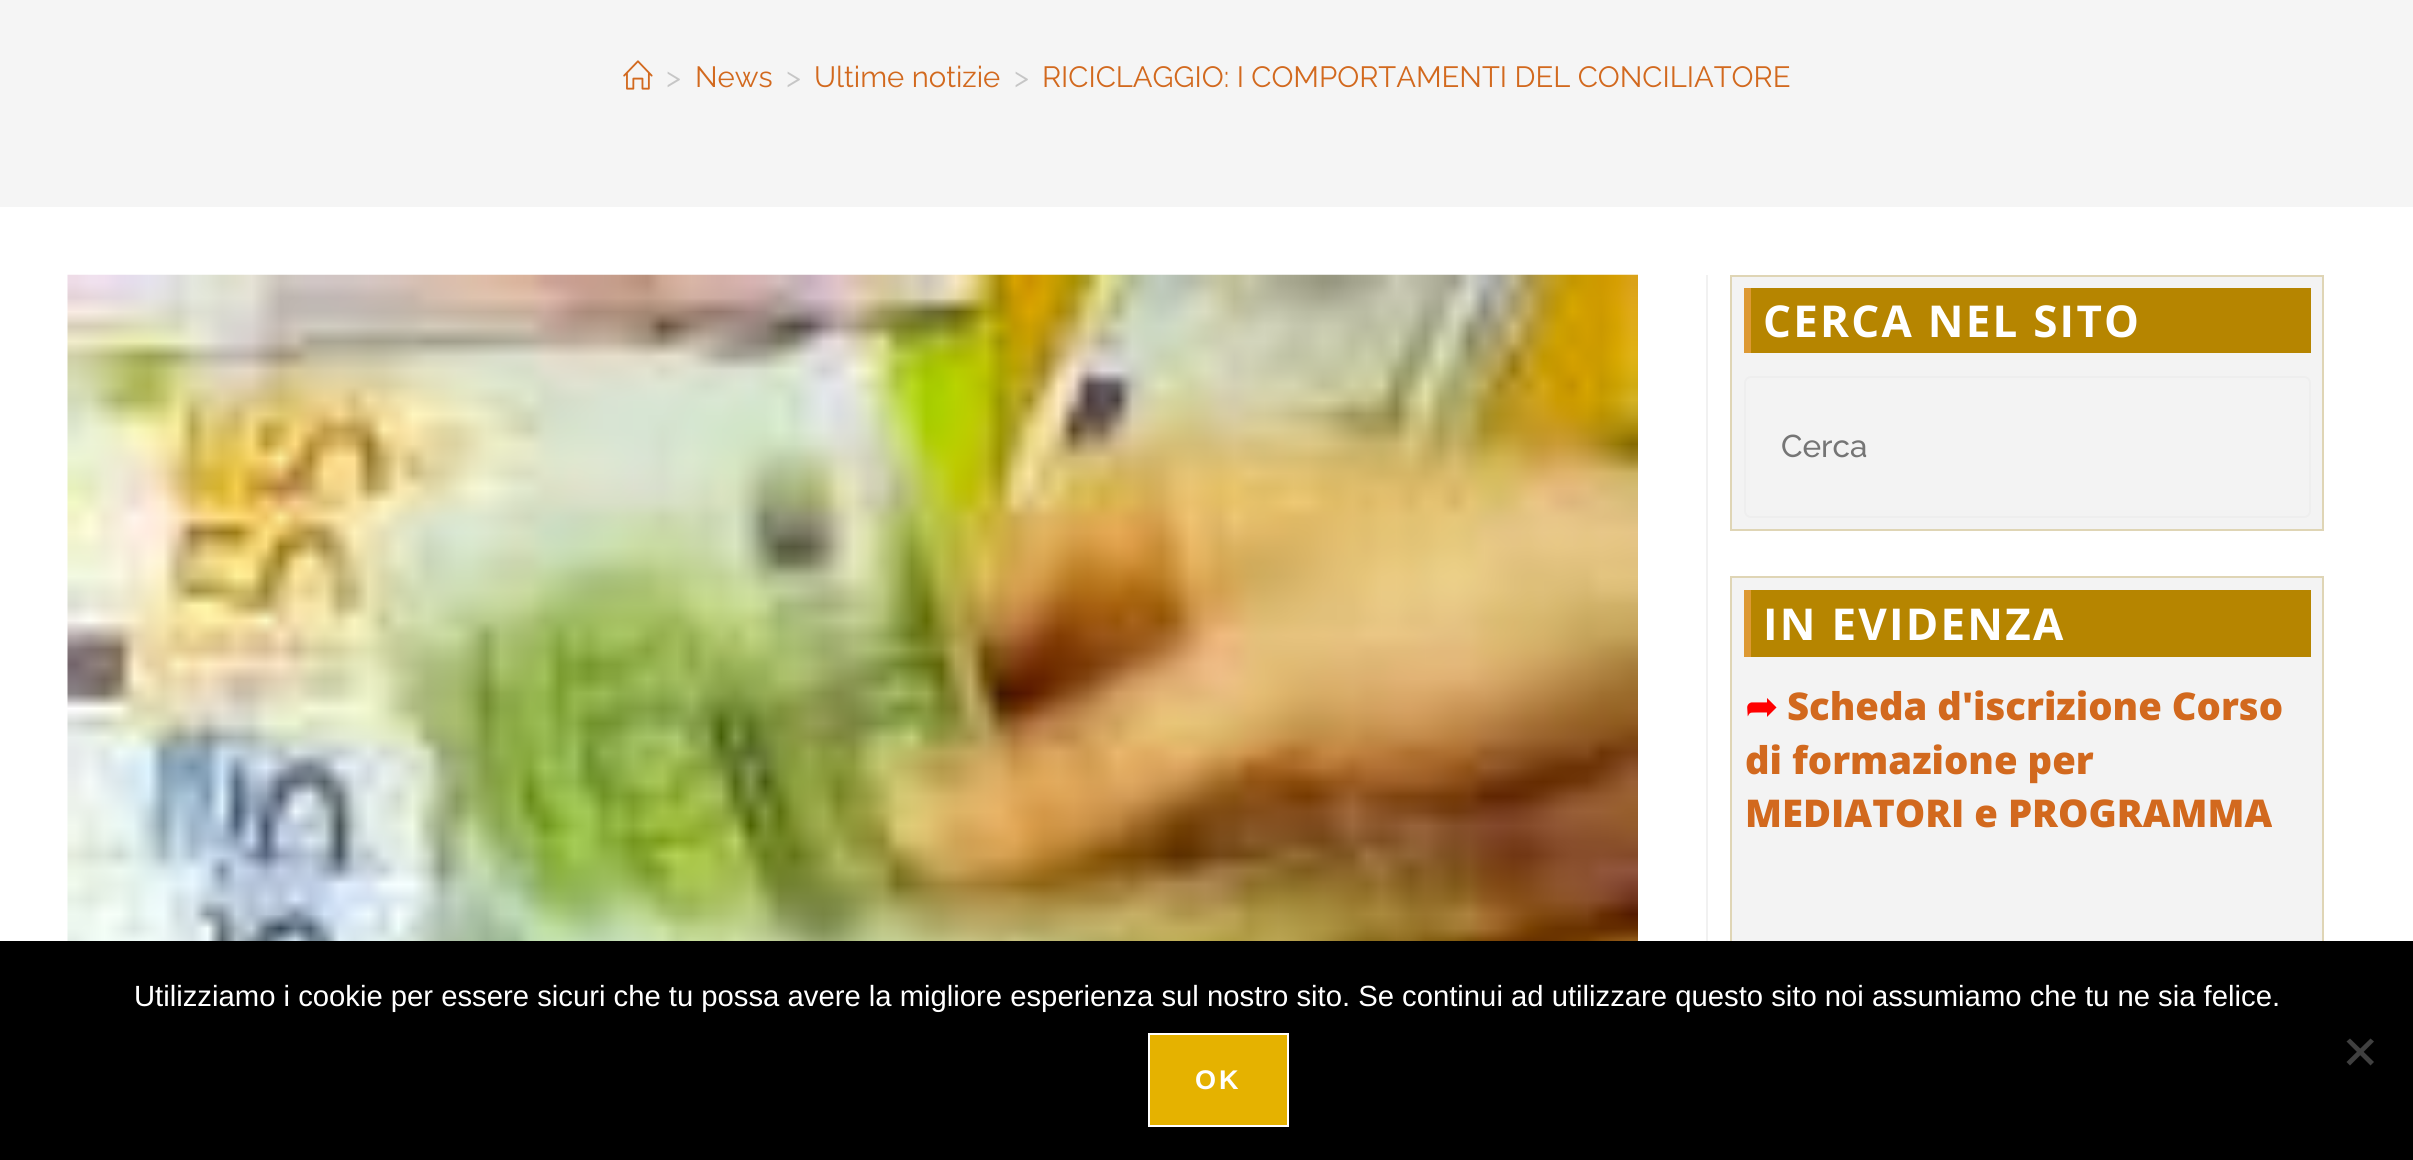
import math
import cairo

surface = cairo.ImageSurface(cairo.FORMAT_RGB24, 2413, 1160)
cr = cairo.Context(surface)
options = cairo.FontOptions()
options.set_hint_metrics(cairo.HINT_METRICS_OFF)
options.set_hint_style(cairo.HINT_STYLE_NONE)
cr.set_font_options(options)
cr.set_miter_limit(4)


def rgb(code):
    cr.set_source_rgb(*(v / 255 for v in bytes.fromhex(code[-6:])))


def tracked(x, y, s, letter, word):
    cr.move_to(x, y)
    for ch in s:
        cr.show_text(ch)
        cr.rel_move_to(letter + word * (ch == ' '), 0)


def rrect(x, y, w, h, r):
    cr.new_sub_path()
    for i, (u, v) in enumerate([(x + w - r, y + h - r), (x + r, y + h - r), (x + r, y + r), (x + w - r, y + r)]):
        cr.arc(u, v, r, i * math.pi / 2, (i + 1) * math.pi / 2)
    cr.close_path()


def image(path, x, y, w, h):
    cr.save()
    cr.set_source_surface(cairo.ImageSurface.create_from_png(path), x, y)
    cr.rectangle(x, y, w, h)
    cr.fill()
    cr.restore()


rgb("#ffffff")
cr.paint()
rgb("#f5f5f5")
cr.rectangle(0, 0, 2413, 207)
cr.fill()
image("img/1.png", 623, 60, 30, 30)
rgb("#f1f1f1")
cr.rectangle(1706, 275, 2, 666)
cr.fill()
image("img/2.png", 67, 274, 1571, 667)
rgb("#f3f3f3")
cr.rectangle(1731, 276, 592, 254)
cr.fill_preserve()
rgb("#dfd5b5")
cr.stroke()
rgb("#b68500")
cr.rectangle(1751, 288, 560, 65)
cr.fill()
rgb("#dd9933")
cr.rectangle(1744, 288, 7, 65)
cr.fill()
rrect(1745, 377, 565, 140, 6)
rgb("#eeeeee")
cr.stroke()
rgb("#f3f3f3")
cr.rectangle(1732, 578, 590, 363)
cr.fill()
cr.rectangle(1731, 577, 592, 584)
rgb("#dfd5b5")
cr.stroke()
for x, y, w, h, color in [
    (1751, 590, 560, 67, "#b68500"),
    (1744, 590, 7, 67, "#dd9933"),
    (0, 941, 2413, 219, "#000000"),
]:
    rgb(color)
    cr.rectangle(x, y, w, h)
    cr.fill()
rgb("#404040")
cr.new_path()
cr.move_to(2370.5, 1038.5)
cr.line_to(2374, 1041.5)
cr.line_to(2350, 1065.5)
cr.line_to(2346.5, 1062)
cr.close_path()
cr.fill()
cr.new_path()
cr.move_to(2346.5, 1041.5)
cr.line_to(2350, 1038.5)
cr.line_to(2374, 1062)
cr.line_to(2370.5, 1065.5)
cr.close_path()
cr.fill()
rgb("#e5b200")
cr.rectangle(1149, 1034, 139, 92)
cr.fill_preserve()
rgb("#ffffff")
cr.stroke()
cr.select_font_face("Raleway")
cr.set_font_size(29.25)
rgb("#c6c6c6")
cr.move_to(666, 87)
cr.show_text(">")
rgb("#d2691e")
cr.move_to(695, 87)
cr.show_text("News")
rgb("#c6c6c6")
cr.move_to(786, 87)
cr.show_text(">")
rgb("#d2691e")
cr.move_to(814, 87)
cr.show_text("Ultime notizie")
rgb("#c6c6c6")
cr.move_to(1014, 87)
cr.show_text(">")
rgb("#d2691e")
cr.move_to(1042, 87)
cr.show_text("RICICLAGGIO: I COMPORTAMENTI DEL CONCILIATORE")
cr.select_font_face("Open Sans", cairo.FONT_SLANT_NORMAL, cairo.FONT_WEIGHT_BOLD)
cr.set_font_size(43.9)
rgb("#ffffff")
tracked(1763, 337, "CERCA NEL SITO", 2.25, 0)
cr.select_font_face("Raleway Medium")
cr.set_font_size(31.5)
rgb("#757575")
cr.move_to(1781, 457)
cr.show_text("Cerca")
cr.select_font_face("Open Sans", cairo.FONT_SLANT_NORMAL, cairo.FONT_WEIGHT_BOLD)
cr.set_font_size(43.9)
rgb("#ffffff")
tracked(1763, 640, "IN EVIDENZA", 2.25, 0)
cr.select_font_face("DejaVu Sans", cairo.FONT_SLANT_NORMAL, cairo.FONT_WEIGHT_BOLD)
cr.set_font_size(38.25)
rgb("#ff0000")
cr.move_to(1745, 720)
cr.show_text("➦")
cr.select_font_face("Open Sans ExtraBold")
rgb("#d2691e")
for x, y, s in [
    (1787, 720, "Scheda d'iscrizione Corso"),
    (1745, 774, "di formazione per"),
    (1745, 827, "MEDIATORI e PROGRAMMA"),
]:
    cr.move_to(x, y)
    cr.show_text(s)
cr.select_font_face("Liberation Sans")
cr.set_font_size(29.25)
rgb("#ffffff")
cr.move_to(134, 1006)
cr.show_text("Utilizziamo i cookie per essere sicuri che tu possa avere la migliore esperienza sul nostro sito. Se continui ad utilizzare questo sito noi assumiamo che tu ne sia felice.")
cr.select_font_face("Liberation Sans", cairo.FONT_SLANT_NORMAL, cairo.FONT_WEIGHT_BOLD)
cr.set_font_size(27)
tracked(1195, 1089, "OK", 3, 0)
surface.write_to_png("page.png")
